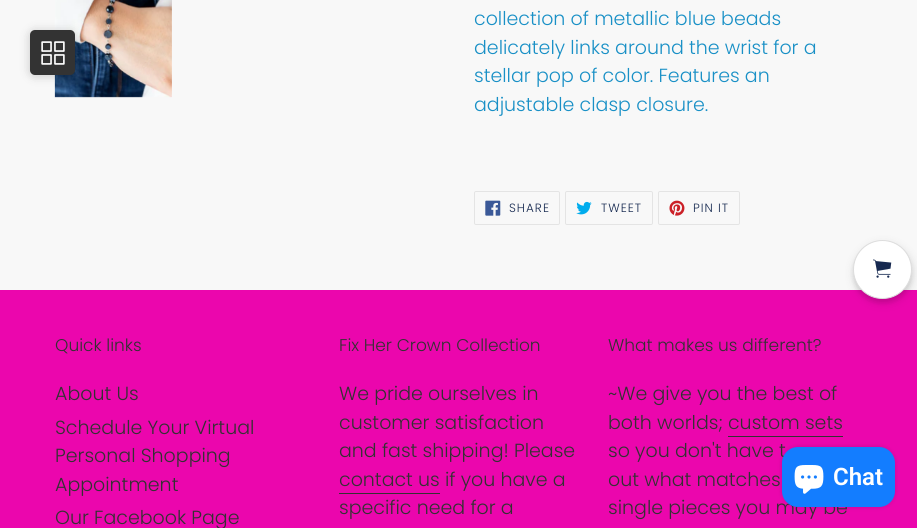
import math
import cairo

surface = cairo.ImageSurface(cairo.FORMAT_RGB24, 917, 528)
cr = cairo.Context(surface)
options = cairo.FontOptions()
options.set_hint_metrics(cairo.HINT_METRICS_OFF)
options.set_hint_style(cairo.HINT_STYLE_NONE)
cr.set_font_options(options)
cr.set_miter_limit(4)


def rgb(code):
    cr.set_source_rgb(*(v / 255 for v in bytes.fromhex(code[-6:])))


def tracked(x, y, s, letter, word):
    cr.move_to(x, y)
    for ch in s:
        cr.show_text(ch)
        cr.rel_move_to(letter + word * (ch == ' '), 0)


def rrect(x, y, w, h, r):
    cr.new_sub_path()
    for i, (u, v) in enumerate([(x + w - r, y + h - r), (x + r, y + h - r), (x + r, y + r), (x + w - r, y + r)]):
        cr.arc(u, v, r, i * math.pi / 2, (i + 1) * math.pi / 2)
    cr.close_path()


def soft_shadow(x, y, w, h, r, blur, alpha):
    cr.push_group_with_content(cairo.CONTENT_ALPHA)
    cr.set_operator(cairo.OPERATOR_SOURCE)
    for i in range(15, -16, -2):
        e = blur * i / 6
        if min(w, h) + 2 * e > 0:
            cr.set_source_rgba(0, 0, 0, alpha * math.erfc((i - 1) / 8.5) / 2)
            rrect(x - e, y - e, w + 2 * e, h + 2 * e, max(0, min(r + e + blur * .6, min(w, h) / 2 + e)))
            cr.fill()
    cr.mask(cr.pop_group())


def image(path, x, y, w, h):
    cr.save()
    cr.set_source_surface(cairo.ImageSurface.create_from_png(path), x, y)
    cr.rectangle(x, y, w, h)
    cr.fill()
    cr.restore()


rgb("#f8f8f8")
cr.paint()
image("img/2.png", 54, 0, 118, 98)
rgb("#000000")
soft_shadow(30, 31, 45, 45, 5, 5, 0.2)
rgb("#333333")
rrect(30, 30, 45, 45, 5)
cr.fill()
image("img/1.png", 41, 41, 24, 24)
rrect(474.5, 191.5, 85, 33, 1.5)
rgb("#e4e4e4")
cr.set_line_width(1)
cr.stroke()
image("img/3.png", 485, 200, 16, 16)
rrect(565.5, 191.5, 87, 33, 1.5)
cr.stroke()
image("img/4.png", 576, 201, 16, 14)
rrect(658.5, 191.5, 81, 33, 1.5)
cr.stroke()
image("img/5.png", 669, 200, 16, 16)
for x, y, w, h, color in [
    (0, 290, 917, 238, "#eb06ad"),
    (339, 493, 101, 1, "#333232"),
    (728, 436, 115, 1, "#333232"),
]:
    rgb(color)
    cr.rectangle(x, y, w, h)
    cr.fill()
rgb("#000000")
soft_shadow(853, 244, 59, 59, 29.5, 2, 0.08)
soft_shadow(854, 244, 59, 59, 29.5, 5, 0.12)
rgb("#ffffff")
cr.arc(882.5, 269.5, 29, 0, 2 * math.pi)
cr.fill_preserve()
rgb("#dddddd")
cr.stroke()
image("img/6.png", 873, 259, 19, 19)
rgb("#000000")
soft_shadow(782, 447, 113, 60, 16, 2.5, 0.15)
cr.select_font_face("Poppins Light")
cr.set_font_size(19)
rgb("#1990c6")
for x, y, s in [
    (474, 25, "collection of metallic blue beads"),
    (474, 54, "delicately links around the wrist for a"),
    (474, 82, "stellar pop of color. Features an"),
    (474, 111, "adjustable clasp closure."),
]:
    cr.move_to(x, y)
    cr.show_text(s)
cr.set_font_size(12)
rgb("#162950")
for x, y, s in [
    (509, 212, "SHARE"),
    (601, 212, "TWEET"),
    (693, 212, "PIN IT"),
]:
    tracked(x, y, s, 1, 0)
cr.set_font_size(17)
rgb("#333232")
cr.move_to(55, 351)
cr.show_text("Quick links")
cr.set_font_size(19)
for x, y, s in [
    (55, 400, "About Us"),
    (55, 434, "Schedule Your Virtual"),
    (55, 462, "Personal Shopping"),
    (55, 491, "Appointment"),
    (55, 524, "Our Facebook Page"),
]:
    cr.move_to(x, y)
    cr.show_text(s)
cr.set_font_size(17)
cr.move_to(339, 351)
cr.show_text("Fix Her Crown Collection")
cr.set_font_size(19)
for x, y, s in [
    (339, 400, "We pride ourselves in"),
    (339, 429, "customer satisfaction"),
    (339, 457, "and fast shipping! Please"),
    (339, 486, "contact us if you have a"),
    (339, 514, "specific need for a"),
]:
    cr.move_to(x, y)
    cr.show_text(s)
cr.set_font_size(17)
cr.move_to(608, 351)
cr.show_text("What makes us different?")
cr.set_font_size(19)
for x, y, s in [
    (608, 400, "~We give you the best of"),
    (608, 429, "both worlds; custom sets"),
    (608, 457, "so you don't have t"),
    (608, 486, "out what matches"),
    (608, 514, "single pieces you may be"),
]:
    cr.move_to(x, y)
    cr.show_text(s)
rgb("#137dff")
rrect(782, 447, 113, 60, 16)
cr.fill()
image("img/7.png", 794, 465, 30, 29)
cr.select_font_face("Roboto SemiBold")
cr.set_font_size(24)
rgb("#ffffff")
cr.move_to(833, 485)
cr.show_text("Chat")
surface.write_to_png("page.png")
